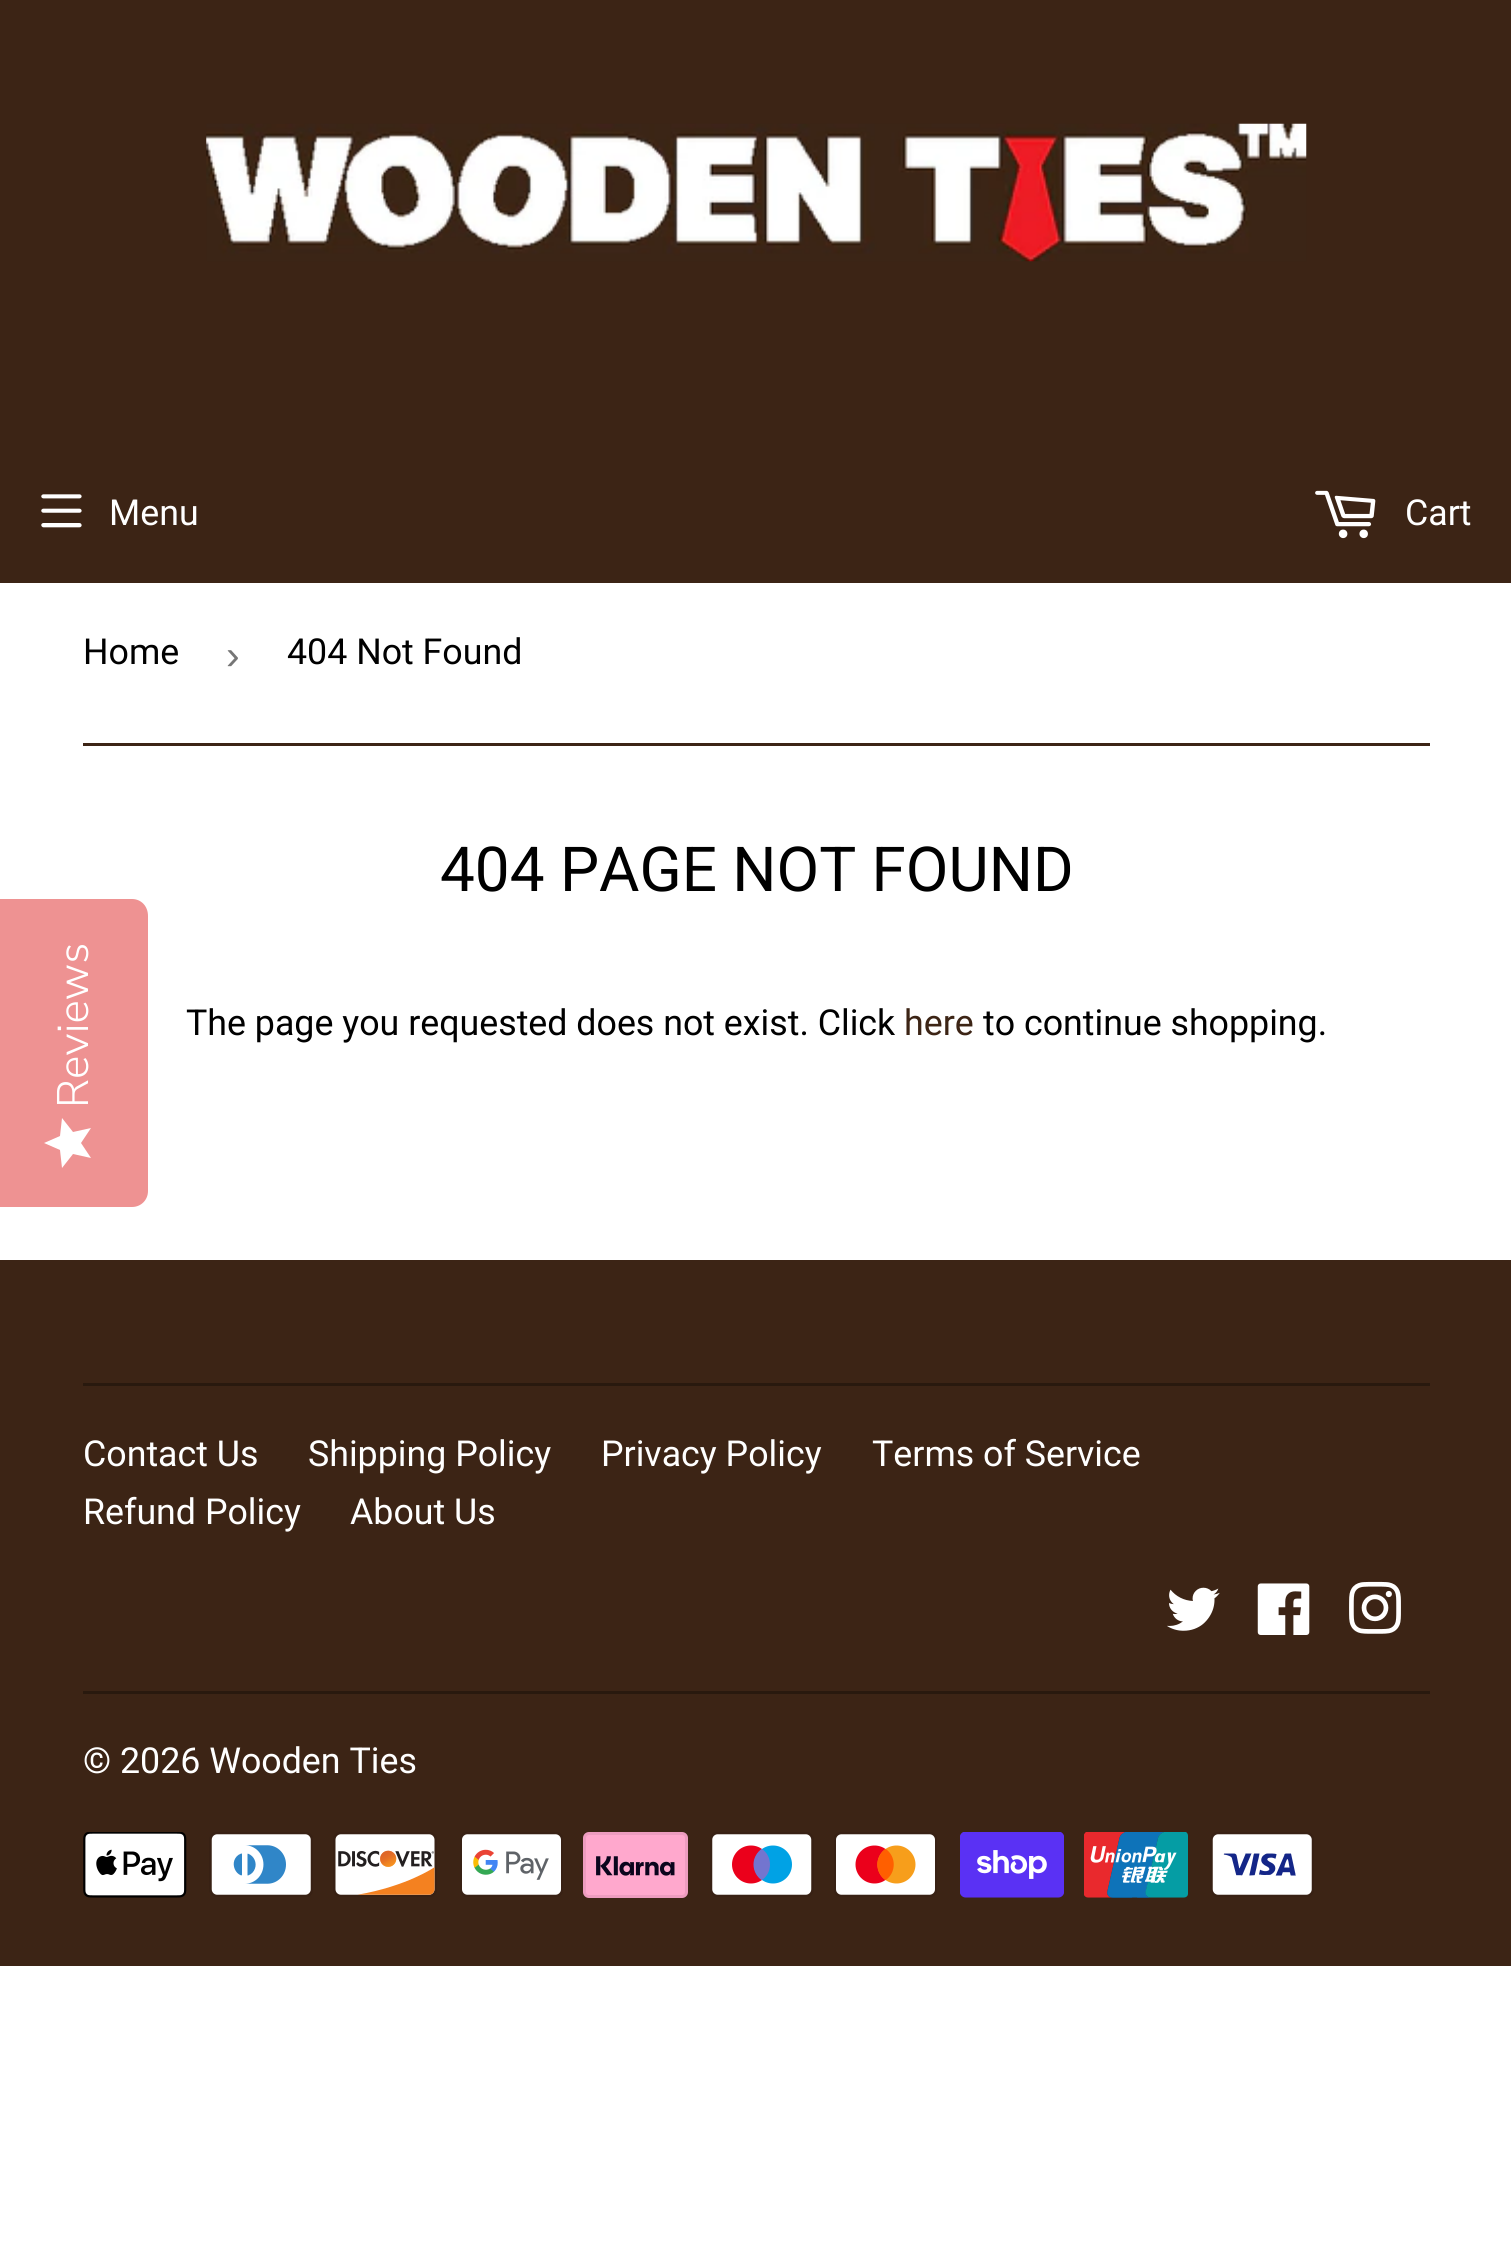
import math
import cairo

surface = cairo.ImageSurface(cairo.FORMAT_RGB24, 1511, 2253)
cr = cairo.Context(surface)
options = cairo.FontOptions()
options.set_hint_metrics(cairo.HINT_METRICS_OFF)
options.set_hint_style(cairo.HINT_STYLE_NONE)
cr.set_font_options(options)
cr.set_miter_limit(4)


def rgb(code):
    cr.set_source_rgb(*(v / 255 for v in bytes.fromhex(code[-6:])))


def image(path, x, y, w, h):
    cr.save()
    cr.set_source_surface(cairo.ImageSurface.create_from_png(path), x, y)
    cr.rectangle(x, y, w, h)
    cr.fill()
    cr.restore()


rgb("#ffffff")
cr.paint()
rgb("#3c2415")
cr.rectangle(0, 0, 1511, 583)
cr.fill()
image("img/1.png", 206, 123, 1101, 139)
image("img/2.png", 41, 494, 41, 34)
image("img/3.png", 1315, 490, 61, 49)
rgb("#ee9292")
cr.new_path()
cr.move_to(0, 1207)
cr.line_to(0, 899)
cr.line_to(132, 899)
cr.curve_to(141, 899, 148, 906, 148, 916)
cr.line_to(148, 1191)
cr.curve_to(148, 1200, 141, 1207, 132, 1207)
cr.close_path()
cr.fill()
gradient = cairo.LinearGradient(44, 1168, 44, 1118)
gradient.add_color_stop_rgba(1, 1, 1, 1, 1)
gradient.add_color_stop_rgba(1, 0.961, 0.961, 0.961, 1)
cr.set_source(gradient)
cr.new_path()
cr.move_to(81, 1143)
cr.line_to(91, 1128)
cr.line_to(73, 1132)
cr.line_to(62, 1118)
cr.line_to(60, 1136)
cr.line_to(44, 1143)
cr.line_to(60, 1150)
cr.line_to(62, 1168)
cr.line_to(73, 1154)
cr.line_to(91, 1158)
cr.close_path()
cr.fill()
for x, y, w, h, color in [
    (83, 743, 1347, 3, "#3c2415"),
    (0, 1260, 1511, 706, "#3c2415"),
    (83, 1383, 1347, 3, "#29190e"),
]:
    rgb(color)
    cr.rectangle(x, y, w, h)
    cr.fill()
image("img/4.png", 1167, 1587, 53, 44)
image("img/5.png", 1257, 1583, 53, 52)
image("img/6.png", 1349, 1581, 52, 53)
cr.rectangle(83, 1691, 1347, 3)
cr.fill()
image("img/7.png", 83, 1832, 104, 66)
image("img/8.png", 209, 1832, 104, 65)
image("img/9.png", 333, 1832, 104, 65)
image("img/10.png", 460, 1832, 103, 65)
image("img/11.png", 583, 1832, 105, 66)
image("img/12.png", 710, 1832, 104, 65)
image("img/13.png", 834, 1832, 103, 65)
image("img/14.png", 960, 1832, 104, 66)
image("img/15.png", 1084, 1832, 104, 66)
image("img/16.png", 1210, 1832, 104, 65)
cr.select_font_face("Roboto")
cr.set_font_size(35.75)
rgb("#ffffff")
cr.move_to(109, 525)
cr.show_text("Menu")
cr.move_to(1405, 525)
cr.show_text("Cart")
cr.select_font_face("Nunito Sans Light")
cr.set_font_size(44)
cr.save()
cr.translate(88, 1108)
cr.rotate(-90 * math.pi / 180)
cr.move_to(0, 0)
cr.show_text("Reviews")
cr.restore()
cr.select_font_face("Roboto")
cr.set_font_size(35.75)
rgb("#000000")
cr.move_to(83, 664)
cr.show_text("Home")
cr.select_font_face("Liberation Sans")
cr.set_font_size(41)
rgb("#767676")
cr.move_to(226, 669)
cr.show_text("›")
cr.select_font_face("Roboto")
cr.set_font_size(35.75)
rgb("#000000")
cr.move_to(287, 664)
cr.show_text("404 Not Found")
cr.set_font_size(62)
cr.move_to(440, 891)
cr.show_text("404 PAGE NOT FOUND")
cr.set_font_size(35.75)
cr.move_to(186, 1035)
cr.show_text("The page you requested does not exist. Click")
rgb("#3c2415")
cr.move_to(904, 1035)
cr.show_text("here")
rgb("#000000")
cr.move_to(983, 1035)
cr.show_text("to continue shopping.")
rgb("#ffffff")
for x, y, s in [
    (83, 1466, "Contact Us"),
    (308, 1466, "Shipping Policy"),
    (601, 1466, "Privacy Policy"),
    (872, 1466, "Terms of Service"),
    (83, 1524, "Refund Policy"),
    (350, 1524, "About Us"),
    (83, 1773, "© 2026 Wooden Ties"),
]:
    cr.move_to(x, y)
    cr.show_text(s)
surface.write_to_png("page.png")
